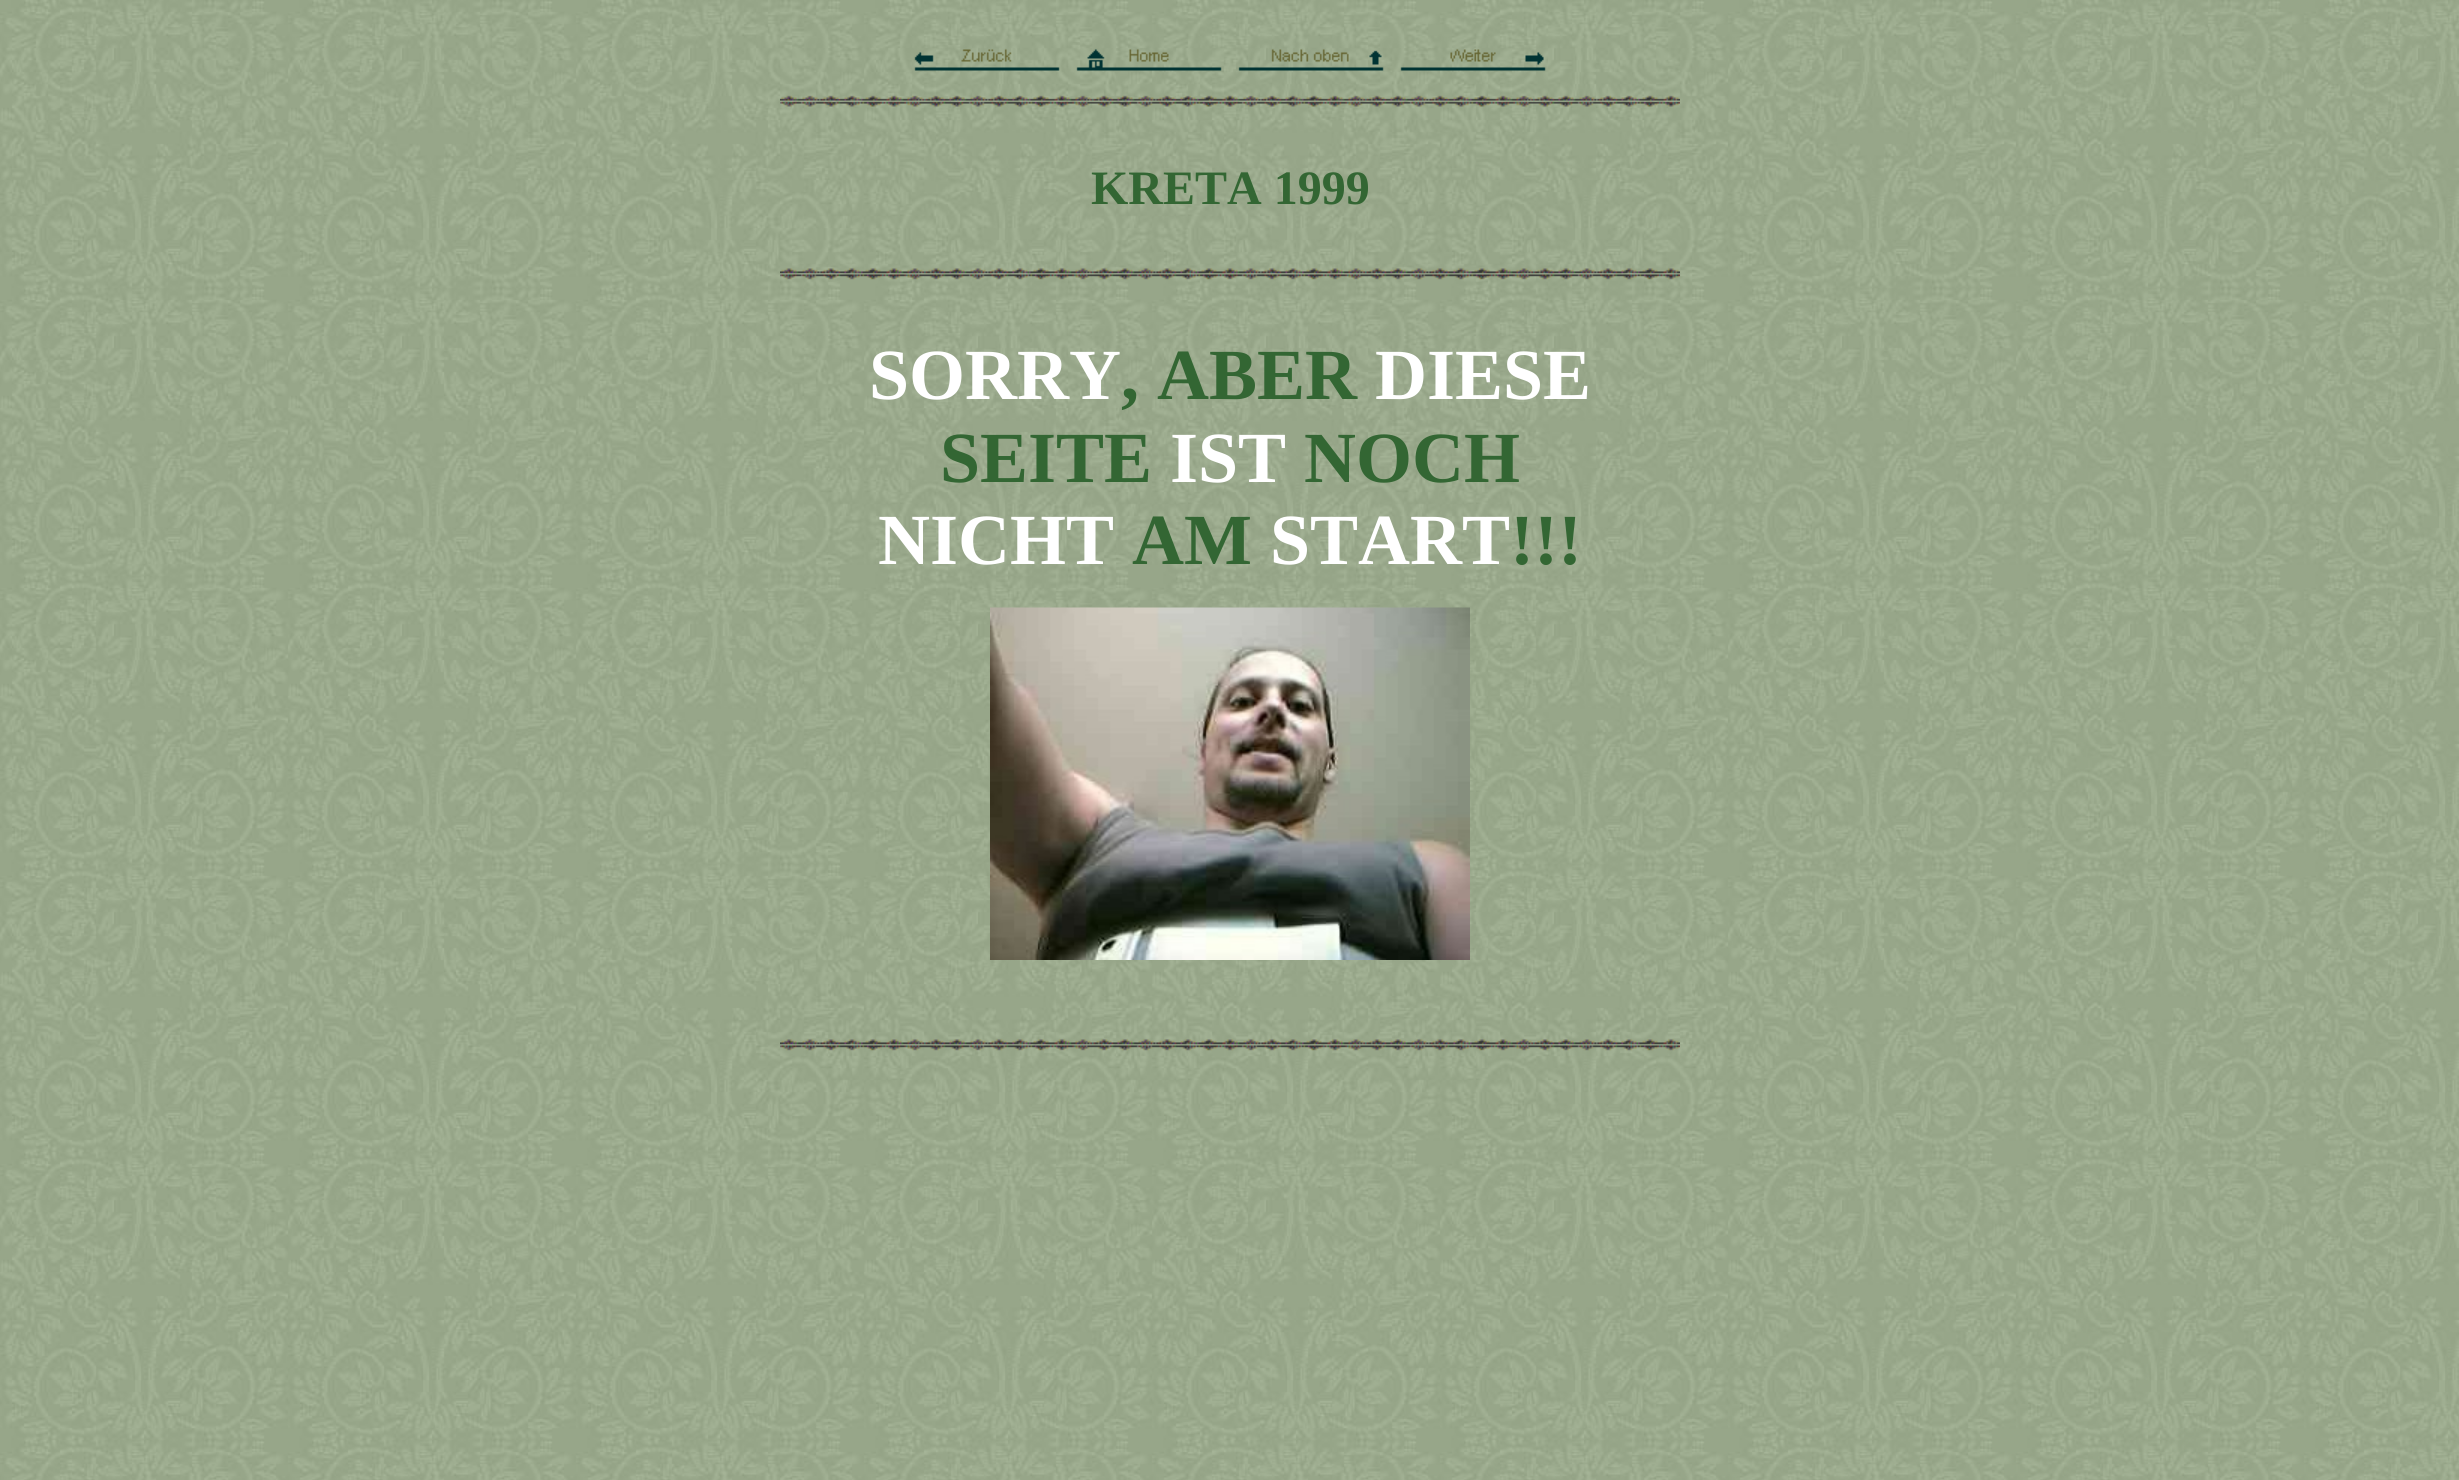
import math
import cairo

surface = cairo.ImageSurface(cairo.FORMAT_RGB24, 2459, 1480)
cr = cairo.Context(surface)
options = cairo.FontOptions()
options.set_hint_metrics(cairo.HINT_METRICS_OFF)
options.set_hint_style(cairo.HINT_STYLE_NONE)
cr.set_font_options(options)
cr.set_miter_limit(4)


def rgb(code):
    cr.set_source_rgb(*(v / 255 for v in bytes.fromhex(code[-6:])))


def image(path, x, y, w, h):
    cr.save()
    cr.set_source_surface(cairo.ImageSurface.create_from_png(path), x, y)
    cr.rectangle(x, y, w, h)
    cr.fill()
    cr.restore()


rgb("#ffffff")
cr.paint()
image("img/1.png", 0, 0, 2459, 1480)
image("img/2.png", 914, 49, 146, 22)
image("img/3.png", 1076, 49, 146, 22)
image("img/4.png", 1238, 49, 146, 22)
image("img/5.png", 1400, 49, 146, 22)
image("img/6.png", 780, 95, 900, 12)
image("img/7.png", 780, 268, 900, 12)
image("img/8.png", 990, 607, 480, 353)
image("img/9.png", 780, 1039, 900, 12)
cr.select_font_face("Liberation Serif", cairo.FONT_SLANT_NORMAL, cairo.FONT_WEIGHT_BOLD)
cr.set_font_size(48)
rgb("#336633")
cr.move_to(1091, 204)
cr.show_text("KRETA 1999")
cr.set_font_size(72)
rgb("#ffffff")
cr.move_to(869, 399)
cr.show_text("SORRY")
rgb("#336633")
cr.move_to(1121, 399)
cr.show_text(", ABER")
rgb("#ffffff")
cr.move_to(1375, 399)
cr.show_text("DIESE")
rgb("#336633")
cr.move_to(940, 482)
cr.show_text("SEITE")
rgb("#ffffff")
cr.move_to(1170, 482)
cr.show_text("IST")
rgb("#336633")
cr.move_to(1304, 482)
cr.show_text("NOCH")
rgb("#ffffff")
cr.move_to(878, 564)
cr.show_text("NICHT")
rgb("#336633")
cr.move_to(1132, 564)
cr.show_text("AM")
rgb("#ffffff")
cr.move_to(1270, 564)
cr.show_text("START")
rgb("#336633")
cr.move_to(1510, 564)
cr.show_text("!!!")
surface.write_to_png("page.png")
